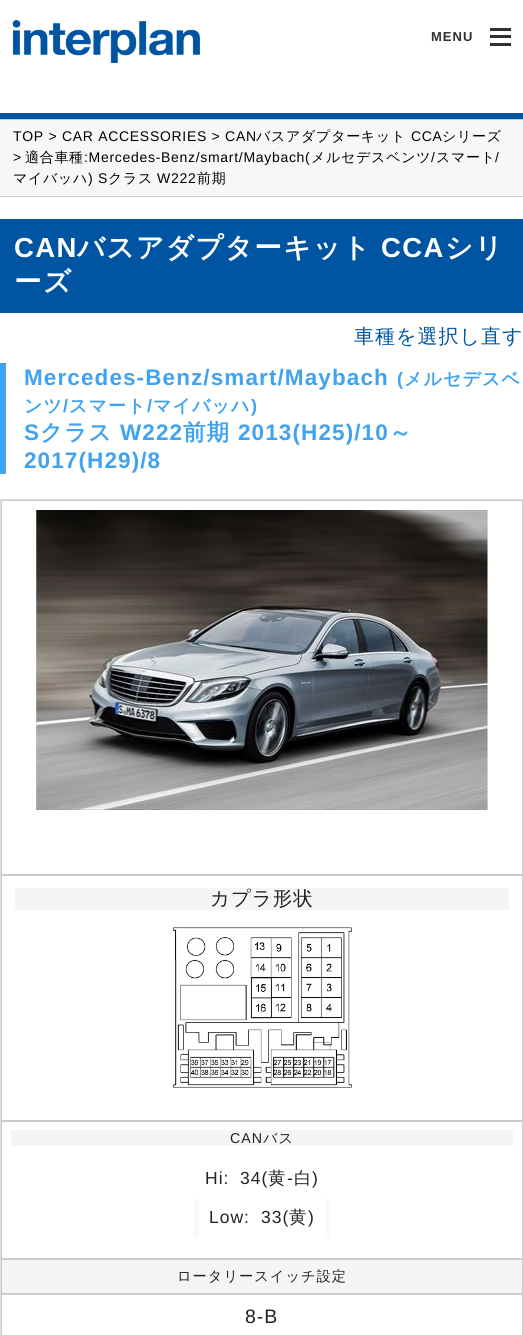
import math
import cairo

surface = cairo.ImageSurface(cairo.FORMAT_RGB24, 523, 1335)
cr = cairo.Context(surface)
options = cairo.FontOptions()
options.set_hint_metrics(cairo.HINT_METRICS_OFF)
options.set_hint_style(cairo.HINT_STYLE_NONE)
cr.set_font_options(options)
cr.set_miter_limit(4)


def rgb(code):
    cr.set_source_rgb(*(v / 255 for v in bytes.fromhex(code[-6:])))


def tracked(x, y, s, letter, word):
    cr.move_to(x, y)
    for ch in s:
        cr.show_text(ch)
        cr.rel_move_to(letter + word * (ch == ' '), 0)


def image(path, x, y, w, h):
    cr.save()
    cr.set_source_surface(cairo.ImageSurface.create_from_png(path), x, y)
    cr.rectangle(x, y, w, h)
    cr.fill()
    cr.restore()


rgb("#ffffff")
cr.paint()
rgb("#0055a2")
cr.rectangle(0, 113, 523, 6)
cr.fill()
image("img/1.png", 12, 20, 188, 43)
for x, y, w, h, color in [
    (490, 43, 21, 3, "#303030"),
    (490, 35, 21, 3, "#303030"),
    (490, 28, 21, 3, "#303030"),
    (0, 120, 523, 78, "#f7f7f7"),
    (0, 119, 523, 1, "#cccccc"),
    (0, 196, 523, 1, "#cccccc"),
    (0, 219, 523, 94, "#0055a2"),
    (0, 363, 6, 111, "#3fa3f1"),
    (0, 499, 523, 1, "#dddddd"),
    (0, 499, 1, 836, "#dddddd"),
]:
    rgb(color)
    cr.rectangle(x, y, w, h)
    cr.fill()
cr.rectangle(1.5, 500.5, 521, 374)
rgb("#cccccc")
cr.set_line_width(1)
cr.stroke()
image("img/2.png", 36, 510, 452, 300)
cr.rectangle(1.5, 875.5, 521, 245)
cr.stroke()
rgb("#f5f5f5")
cr.rectangle(15, 888, 494, 22)
cr.fill()
image("img/3.png", 173, 927, 179, 161)
cr.rectangle(1.5, 1121.5, 521, 137)
rgb("#cccccc")
cr.stroke()
for x, y, w, h, color in [
    (11, 1130, 502, 16, "#f5f5f5"),
    (194, 1199, 136, 39, "#f9f9f9"),
    (199, 1199, 126, 39, "#ffffff"),
]:
    rgb(color)
    cr.rectangle(x, y, w, h)
    cr.fill()
rgb("#f5f5f5")
cr.rectangle(1.5, 1259.5, 521, 34)
cr.fill_preserve()
rgb("#cccccc")
cr.stroke()
cr.rectangle(1.5, 1294.5, 521, 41)
cr.stroke()
cr.select_font_face("Liberation Sans", cairo.FONT_SLANT_NORMAL, cairo.FONT_WEIGHT_BOLD)
cr.set_font_size(13)
rgb("#303030")
tracked(431, 41, "MENU", 1, 0)
cr.select_font_face("Liberation Sans")
cr.set_font_size(14)
rgb("#000000")
tracked(13, 141, "TOP > CAR ACCESSORIES > CAN", 0.7, 0)
cr.select_font_face("WenQuanYi Zen Hei Medium")
tracked(256, 141, "バスアダプターキット", 0.7, 0)
cr.select_font_face("Liberation Sans")
tracked(411, 141, "CCA", 0.7, 0)
cr.select_font_face("WenQuanYi Zen Hei Medium")
tracked(442, 141, "シリーズ", 0.7, 0)
cr.select_font_face("Liberation Sans")
tracked(13, 162, ">", 0.7, 0)
cr.select_font_face("WenQuanYi Zen Hei Medium")
tracked(25, 162, "適合車種", 0.7, 0)
cr.select_font_face("Liberation Sans")
tracked(84, 162, ":Mercedes-Benz/smart/Maybach(", 0.7, 0)
cr.select_font_face("WenQuanYi Zen Hei Medium")
tracked(311, 162, "メルセデスベンツ", 0.7, 0)
cr.select_font_face("Liberation Sans")
tracked(431, 162, "/", 0.7, 0)
cr.select_font_face("WenQuanYi Zen Hei Medium")
tracked(436, 162, "スマート", 0.7, 0)
cr.select_font_face("Liberation Sans")
tracked(495, 162, "/", 0.7, 0)
cr.select_font_face("WenQuanYi Zen Hei Medium")
tracked(13, 183, "マイバッハ", 0.7, 0)
cr.select_font_face("Liberation Sans")
tracked(88, 183, ") S", 0.7, 0)
cr.select_font_face("WenQuanYi Zen Hei Medium")
tracked(108, 183, "クラス", 0.7, 0)
cr.select_font_face("Liberation Sans")
tracked(157, 183, "W222", 0.7, 0)
cr.select_font_face("WenQuanYi Zen Hei Medium")
tracked(197, 183, "前期", 0.7, 0)
cr.select_font_face("Liberation Sans", cairo.FONT_SLANT_NORMAL, cairo.FONT_WEIGHT_BOLD)
cr.set_font_size(27.5)
rgb("#ffffff")
tracked(14, 257, "CAN", 1.4, 0)
cr.select_font_face("WenQuanYi Zen Hei", cairo.FONT_SLANT_NORMAL, cairo.FONT_WEIGHT_BOLD)
tracked(77, 257, "バスアダプターキット", 1.4, 0)
cr.select_font_face("Liberation Sans", cairo.FONT_SLANT_NORMAL, cairo.FONT_WEIGHT_BOLD)
tracked(381, 257, "CCA", 1.4, 0)
cr.select_font_face("WenQuanYi Zen Hei", cairo.FONT_SLANT_NORMAL, cairo.FONT_WEIGHT_BOLD)
tracked(445, 257, "シリ", 1.4, 0)
tracked(14, 291, "ーズ", 1.4, 0)
cr.select_font_face("WenQuanYi Zen Hei Medium")
cr.set_font_size(20)
rgb("#0055a2")
tracked(354, 343, "車種を選択し直す", 1, 0)
cr.select_font_face("Liberation Sans", cairo.FONT_SLANT_NORMAL, cairo.FONT_WEIGHT_BOLD)
cr.set_font_size(22.5)
rgb("#3fa3f1")
tracked(24, 385, "Mercedes-Benz/smart/Maybach", 1.1, 0)
cr.set_font_size(18)
tracked(397, 385, "(", 1.1, 0)
cr.select_font_face("WenQuanYi Zen Hei", cairo.FONT_SLANT_NORMAL, cairo.FONT_WEIGHT_BOLD)
tracked(404, 385, "メルセデスベ", 1.1, 0)
tracked(24, 412, "ンツ", 1.1, 0)
cr.select_font_face("Liberation Sans", cairo.FONT_SLANT_NORMAL, cairo.FONT_WEIGHT_BOLD)
tracked(63, 412, "/", 1.1, 0)
cr.select_font_face("WenQuanYi Zen Hei", cairo.FONT_SLANT_NORMAL, cairo.FONT_WEIGHT_BOLD)
tracked(69, 412, "スマート", 1.1, 0)
cr.select_font_face("Liberation Sans", cairo.FONT_SLANT_NORMAL, cairo.FONT_WEIGHT_BOLD)
tracked(147, 412, "/", 1.1, 0)
cr.select_font_face("WenQuanYi Zen Hei", cairo.FONT_SLANT_NORMAL, cairo.FONT_WEIGHT_BOLD)
tracked(153, 412, "マイバッハ", 1.1, 0)
cr.select_font_face("Liberation Sans", cairo.FONT_SLANT_NORMAL, cairo.FONT_WEIGHT_BOLD)
tracked(251, 412, ")", 1.1, 0)
cr.set_font_size(22.5)
tracked(24, 440, "S", 1.1, 0)
cr.select_font_face("WenQuanYi Zen Hei", cairo.FONT_SLANT_NORMAL, cairo.FONT_WEIGHT_BOLD)
tracked(40, 440, "クラス", 1.1, 0)
cr.select_font_face("Liberation Sans", cairo.FONT_SLANT_NORMAL, cairo.FONT_WEIGHT_BOLD)
tracked(120, 440, "W222", 1.1, 0)
cr.select_font_face("WenQuanYi Zen Hei", cairo.FONT_SLANT_NORMAL, cairo.FONT_WEIGHT_BOLD)
tracked(183, 440, "前期", 1.1, 0)
cr.select_font_face("Liberation Sans", cairo.FONT_SLANT_NORMAL, cairo.FONT_WEIGHT_BOLD)
tracked(238, 440, "2013(H25)/10", 1.1, 0)
cr.select_font_face("WenQuanYi Zen Hei", cairo.FONT_SLANT_NORMAL, cairo.FONT_WEIGHT_BOLD)
tracked(389, 440, "～", 1.1, 0)
cr.select_font_face("Liberation Sans", cairo.FONT_SLANT_NORMAL, cairo.FONT_WEIGHT_BOLD)
tracked(24, 468, "2017(H29)/8", 1.1, 0)
cr.select_font_face("WenQuanYi Zen Hei Medium")
cr.set_font_size(19.5)
rgb("#222222")
tracked(210, 905, "カプラ形状", 1, 0)
cr.select_font_face("Liberation Sans")
cr.set_font_size(14.25)
tracked(230, 1143, "CAN", 1, 0)
cr.select_font_face("WenQuanYi Zen Hei Medium")
tracked(263, 1143, "バス", 1, 0)
cr.select_font_face("Liberation Sans")
cr.set_font_size(17.5)
tracked(205, 1184, "Hi:", 1, 0)
tracked(240, 1184, "34(", 1, 0)
cr.select_font_face("WenQuanYi Zen Hei Medium")
tracked(268, 1184, "黄", 1, 0)
cr.select_font_face("Liberation Sans")
tracked(287, 1184, "-", 1, 0)
cr.select_font_face("WenQuanYi Zen Hei Medium")
tracked(294, 1184, "白", 1, 0)
cr.select_font_face("Liberation Sans")
for x, y, s in [
    (312, 1184, ")"),
    (209, 1223, "Low:"),
    (261, 1223, "33("),
]:
    tracked(x, y, s, 1, 0)
cr.select_font_face("WenQuanYi Zen Hei Medium")
tracked(289, 1223, "黄", 1, 0)
cr.select_font_face("Liberation Sans")
tracked(308, 1223, ")", 1, 0)
cr.select_font_face("WenQuanYi Zen Hei Medium")
cr.set_font_size(14.25)
tracked(177, 1281, "ロータリースイッチ設定", 1, 0)
cr.select_font_face("Liberation Sans")
cr.set_font_size(19.5)
tracked(245, 1323, "8-B", 1, 0)
surface.write_to_png("page.png")
